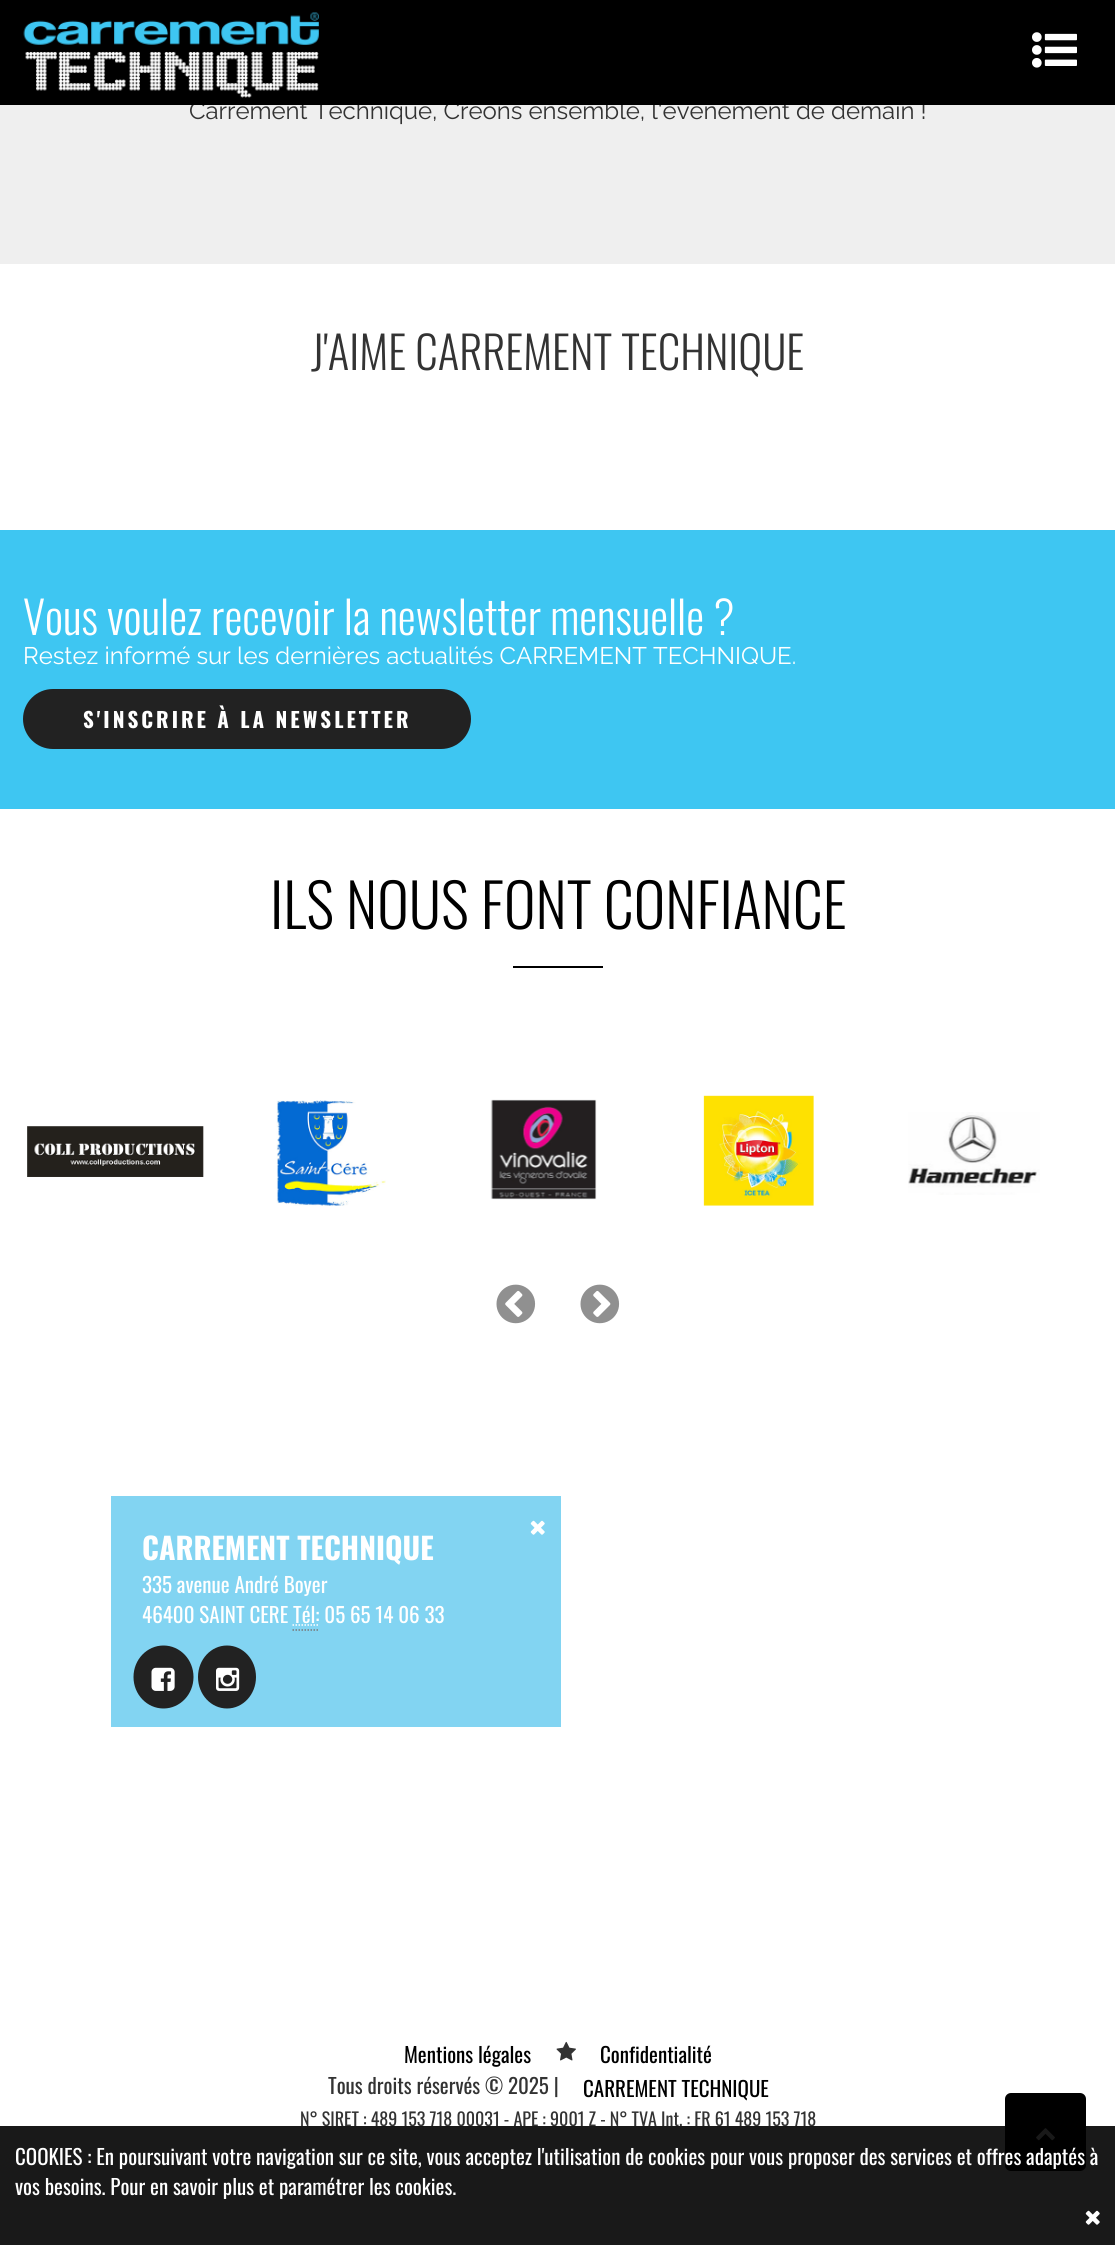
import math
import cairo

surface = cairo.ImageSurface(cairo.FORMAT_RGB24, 1115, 2245)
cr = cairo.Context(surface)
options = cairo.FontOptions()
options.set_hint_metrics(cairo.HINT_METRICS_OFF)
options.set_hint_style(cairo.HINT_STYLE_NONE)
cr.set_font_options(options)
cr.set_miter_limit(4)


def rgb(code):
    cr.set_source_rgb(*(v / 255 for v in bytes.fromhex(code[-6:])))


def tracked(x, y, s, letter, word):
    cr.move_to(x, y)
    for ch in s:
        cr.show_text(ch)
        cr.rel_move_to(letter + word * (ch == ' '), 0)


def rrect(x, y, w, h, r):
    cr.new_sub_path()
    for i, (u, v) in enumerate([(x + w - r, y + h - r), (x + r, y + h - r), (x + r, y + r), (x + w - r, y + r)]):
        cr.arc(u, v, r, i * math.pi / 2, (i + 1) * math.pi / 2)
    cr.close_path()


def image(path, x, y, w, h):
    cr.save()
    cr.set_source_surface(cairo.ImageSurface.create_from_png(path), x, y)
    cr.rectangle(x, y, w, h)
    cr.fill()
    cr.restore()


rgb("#ffffff")
cr.paint()
rgb("#efefef")
cr.rectangle(0, 105, 1115, 159)
cr.fill()
rgb("#3ec6f2")
cr.rectangle(0, 530, 1115, 279)
cr.fill()
rgb("#222222")
rrect(23, 689, 448, 60, 30)
cr.fill()
rgb("#000000")
cr.rectangle(513, 966, 90, 2)
cr.fill()
image("img/3.png", 27, 1126, 177, 51)
image("img/4.png", 276, 1100, 110, 106)
image("img/5.png", 490, 1099, 107, 101)
image("img/6.png", 703, 1095, 111, 111)
image("img/7.png", 908, 1112, 132, 83)
image("img/8.png", 496, 1284, 40, 40)
image("img/9.png", 580, 1284, 40, 40)
rgb("#82d4f2")
cr.rectangle(111, 1496, 450, 231)
cr.fill()
image("img/10.png", 530, 1520, 15, 15)
cr.new_path()
cr.move_to(292.5, 1625)
cr.line_to(319, 1625)
rgb("#ffffff")
cr.set_line_width(1.5)
cr.set_dash([1.5, 1.5])
cr.stroke()
cr.new_path()
cr.move_to(292.5, 1630)
cr.line_to(319.5, 1630)
rgb("#777777")
cr.stroke()
rgb("#222222")
cr.new_path()
cr.move_to(163.5, 1645.5)
cr.curve_to(180, 1645.5, 193.5, 1659.5, 193.5, 1677)
cr.curve_to(193.5, 1694.5, 180, 1708.5, 163.5, 1708.5)
cr.curve_to(147, 1708.5, 133.5, 1694.5, 133.5, 1677)
cr.curve_to(133.5, 1659.5, 147, 1645.5, 163.5, 1645.5)
cr.close_path()
cr.fill()
image("img/11.png", 151, 1667, 24, 24)
cr.new_path()
cr.move_to(227, 1645.5)
cr.curve_to(243, 1645.5, 256, 1659.5, 256, 1677)
cr.curve_to(256, 1694.5, 243, 1708.5, 227, 1708.5)
cr.curve_to(211, 1708.5, 198, 1694.5, 198, 1677)
cr.curve_to(198, 1659.5, 211, 1645.5, 227, 1645.5)
cr.close_path()
cr.fill()
image("img/12.png", 216, 1667, 24, 24)
image("img/13.png", 556, 2041, 20, 20)
rgb("#000000")
rrect(1005, 2093, 81, 78, 6)
cr.fill()
image("img/14.png", 1036, 2128, 19, 13)
cr.select_font_face("Raleway")
cr.set_font_size(24)
rgb("#333333")
cr.move_to(189, 119)
cr.show_text("Carrément Technique, Créons ensemble, l'évènement de demain !")
rgb("#000000")
cr.rectangle(0, 0, 1115, 105)
cr.fill()
image("img/2.png", 1032, 32, 45, 36)
image("img/1.png", 23, 12, 296, 86)
cr.select_font_face("Oswald Light")
cr.set_font_size(45)
rgb("#333333")
cr.move_to(311, 370)
cr.show_text("J'AIME CARREMENT TECHNIQUE")
rgb("#ffffff")
cr.move_to(23, 635)
cr.show_text("Vous voulez recevoir la newsletter mensuelle ?")
cr.select_font_face("Raleway")
cr.set_font_size(24)
cr.move_to(23, 664)
cr.show_text("Restez informé sur les dernières actualités CARREMENT TECHNIQUE.")
cr.select_font_face("Oswald", cairo.FONT_SLANT_NORMAL, cairo.FONT_WEIGHT_BOLD)
cr.set_font_size(21)
tracked(83, 728, "S'INSCRIRE À LA NEWSLETTER", 3, 0)
cr.select_font_face("Oswald Light")
cr.set_font_size(60)
rgb("#000000")
cr.move_to(270, 929)
cr.show_text("ILS NOUS FONT CONFIANCE")
cr.select_font_face("Oswald", cairo.FONT_SLANT_NORMAL, cairo.FONT_WEIGHT_BOLD)
cr.set_font_size(30)
rgb("#ffffff")
cr.move_to(142, 1560)
cr.show_text("CARREMENT TECHNIQUE")
cr.select_font_face("Oswald")
cr.set_font_size(21)
cr.move_to(142, 1593)
cr.show_text("335 avenue André Boyer")
cr.move_to(142, 1623)
cr.show_text("46400 SAINT CERE Tél: 05 65 14 06 33")
rgb("#000000")
cr.move_to(404, 2063)
cr.show_text("Mentions légales")
cr.move_to(600, 2063)
cr.show_text("Confidentialité")
rgb("#333333")
cr.move_to(328, 2094)
cr.show_text("Tous droits réservés © 2025 |")
rgb("#000000")
cr.move_to(583, 2097)
cr.show_text("CARREMENT TECHNIQUE")
cr.set_font_size(18)
rgb("#333333")
cr.move_to(300, 2126)
cr.show_text("N° SIRET : 489 153 718 00031 - APE : 9001 Z - N° TVA Int. : FR 61 489 153 718")
cr.set_source_rgba(0, 0, 0, 0.9)
cr.rectangle(0, 2126, 1115, 119)
cr.fill()
cr.set_font_size(21)
rgb("#ffffff")
cr.move_to(15, 2165)
cr.show_text("COOKIES : En poursuivant votre navigation sur ce site, vous acceptez l'utilisation de cookies pour vous proposer des services et offres adaptés à")
cr.move_to(15, 2195)
cr.show_text("vos besoins. Pour en savoir plus et paramétrer les cookies.")
image("img/15.png", 1085, 2210, 15, 15)
surface.write_to_png("page.png")
